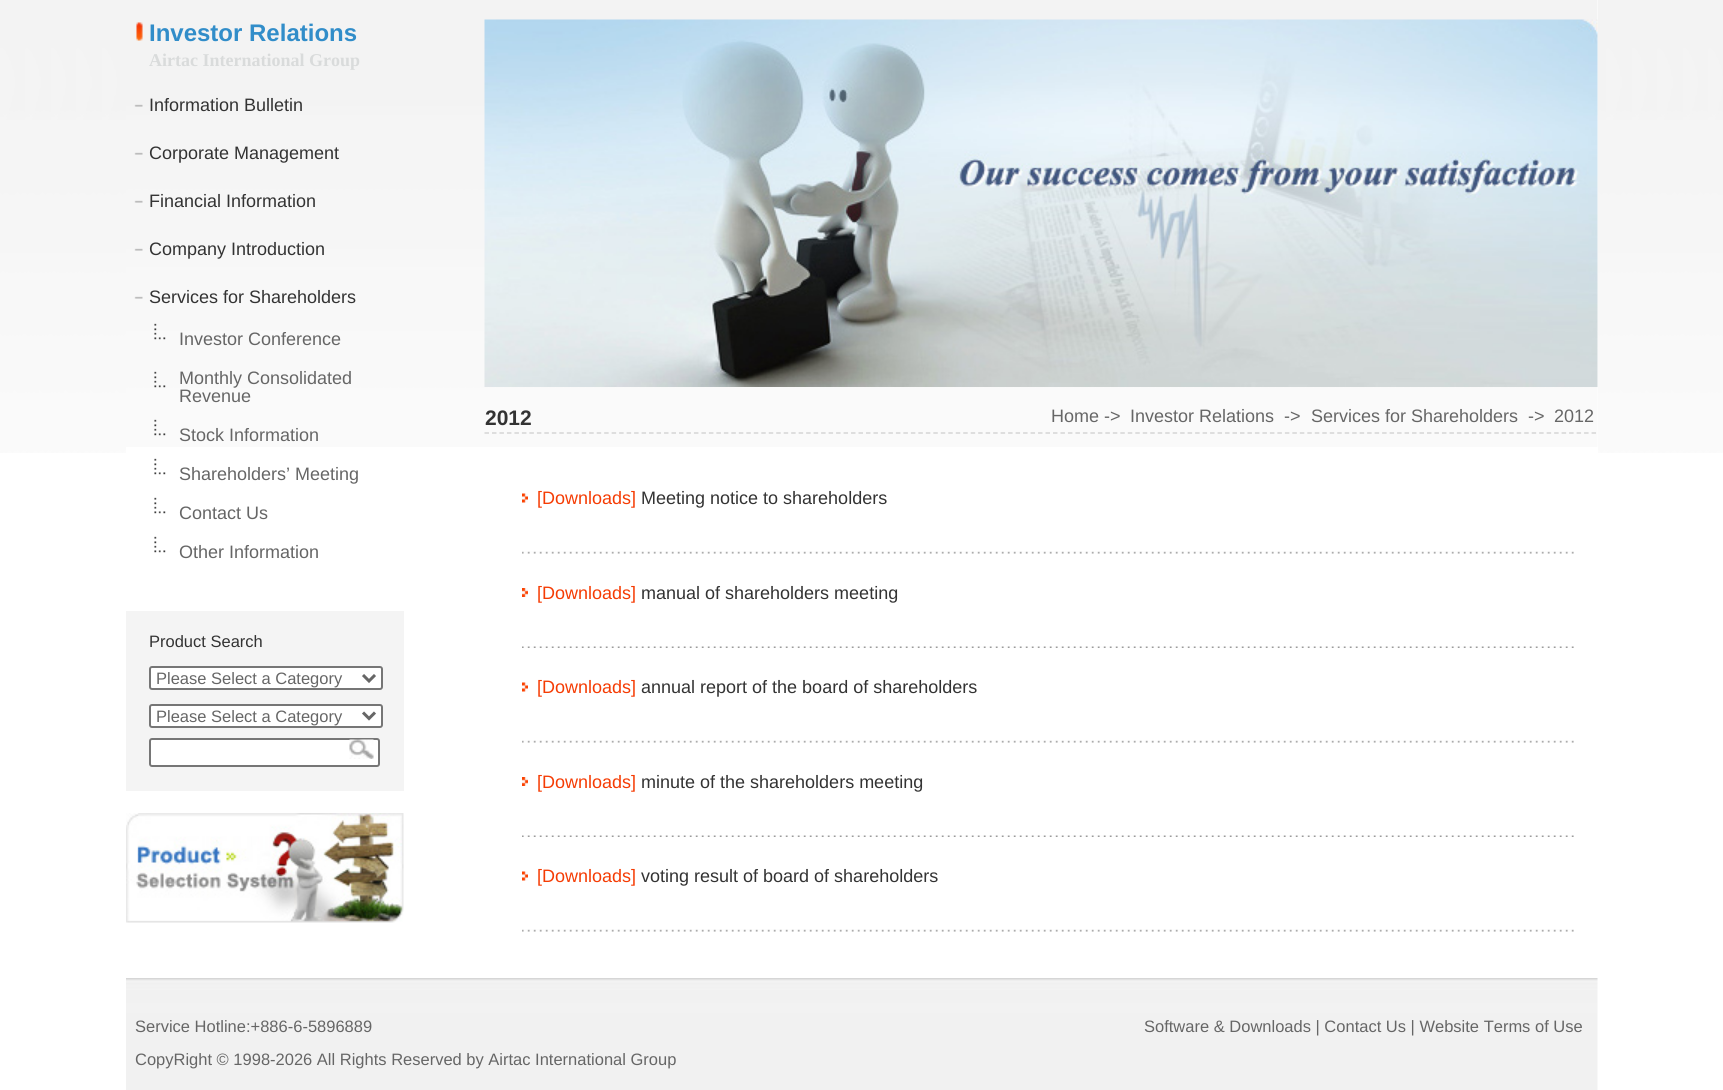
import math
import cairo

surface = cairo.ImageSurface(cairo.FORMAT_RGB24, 1723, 1090)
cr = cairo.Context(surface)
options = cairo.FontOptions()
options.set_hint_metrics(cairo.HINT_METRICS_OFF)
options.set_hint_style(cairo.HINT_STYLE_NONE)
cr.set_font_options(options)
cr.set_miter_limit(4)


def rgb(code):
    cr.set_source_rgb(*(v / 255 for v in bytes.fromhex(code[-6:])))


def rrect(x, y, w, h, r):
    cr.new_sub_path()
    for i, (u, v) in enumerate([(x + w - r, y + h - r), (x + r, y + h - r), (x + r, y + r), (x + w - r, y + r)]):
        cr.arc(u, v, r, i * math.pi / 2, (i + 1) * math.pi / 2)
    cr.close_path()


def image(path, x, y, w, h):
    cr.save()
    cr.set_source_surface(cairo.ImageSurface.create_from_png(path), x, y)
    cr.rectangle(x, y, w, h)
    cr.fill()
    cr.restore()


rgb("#ffffff")
cr.paint()
image("img/1.png", 0, 0, 1723, 453)
rgb("#ffffff")
cr.rectangle(126, 0, 1472, 453)
cr.fill()
image("img/2.png", 126, 0, 1472, 447)
image("img/3.png", 136, 22, 7, 19)
image("img/4.png", 134, 104, 9, 3)
image("img/5.png", 134, 152, 9, 3)
image("img/6.png", 134, 200, 9, 3)
image("img/7.png", 134, 248, 9, 3)
image("img/8.png", 134, 296, 9, 3)
image("img/9.png", 154, 323, 12, 17)
image("img/10.png", 154, 371, 12, 17)
image("img/11.png", 154, 419, 12, 17)
image("img/12.png", 154, 458, 12, 17)
image("img/12.png", 154, 497, 12, 17)
image("img/12.png", 154, 536, 12, 17)
rgb("#f4f4f4")
cr.rectangle(126, 611, 278, 180)
cr.fill()
rgb("#ffffff")
rrect(150, 667, 232, 22, 2)
cr.fill_preserve()
rgb("#767676")
cr.stroke()
cr.new_path()
cr.move_to(363, 675)
cr.line_to(369, 681)
cr.line_to(375, 675)
rgb("#666666")
cr.set_line_width(3)
cr.stroke()
rgb("#ffffff")
rrect(150, 705, 232, 22, 2)
cr.fill_preserve()
rgb("#767676")
cr.set_line_width(2)
cr.stroke()
cr.new_path()
cr.move_to(363, 712.5)
cr.line_to(369, 718.5)
cr.line_to(375, 712.5)
rgb("#666666")
cr.set_line_width(3)
cr.stroke()
rgb("#ffffff")
rrect(150, 739, 229, 27, 2)
cr.fill_preserve()
rgb("#767676")
cr.set_line_width(2)
cr.stroke()
image("img/13.png", 349, 739, 25, 20)
image("img/14.png", 126, 813, 278, 110)
image("img/15.png", 484, 19, 1114, 368)
cr.new_path()
cr.move_to(484.5, 433)
cr.line_to(1597.5, 433)
rgb("#d5d5d5")
cr.set_line_width(1.5)
cr.set_dash([4.5, 2.98])
cr.stroke()
image("img/16.png", 522, 551, 1052, 3)
image("img/17.png", 522, 493, 6, 10)
image("img/18.png", 522, 646, 1052, 2)
image("img/19.png", 522, 588, 6, 9)
image("img/16.png", 522, 740, 1052, 3)
image("img/17.png", 522, 682, 6, 10)
image("img/18.png", 522, 835, 1052, 2)
image("img/19.png", 522, 777, 6, 9)
image("img/16.png", 522, 929, 1052, 3)
image("img/17.png", 522, 871, 6, 10)
image("img/20.png", 126, 978, 1472, 112)
cr.select_font_face("Liberation Sans", cairo.FONT_SLANT_NORMAL, cairo.FONT_WEIGHT_BOLD)
cr.set_font_size(24)
rgb("#318dc9")
cr.move_to(149, 41)
cr.show_text("Investor Relations")
cr.select_font_face("Liberation Serif", cairo.FONT_SLANT_NORMAL, cairo.FONT_WEIGHT_BOLD)
cr.set_font_size(18)
rgb("#d9dbdb")
cr.move_to(149, 66)
cr.show_text("Airtac International Group")
cr.select_font_face("Liberation Sans")
rgb("#333333")
for x, y, s in [
    (149, 111, "Information Bulletin"),
    (149, 159, "Corporate Management"),
    (149, 207, "Financial Information"),
    (149, 255, "Company Introduction"),
    (149, 303, "Services for Shareholders"),
]:
    cr.move_to(x, y)
    cr.show_text(s)
rgb("#666666")
for x, y, s in [
    (179, 345, "Investor Conference"),
    (179, 384, "Monthly Consolidated"),
    (179, 402, "Revenue"),
    (179, 441, "Stock Information"),
    (179, 480, "Shareholders’ Meeting"),
    (179, 519, "Contact Us"),
    (179, 558, "Other Information"),
]:
    cr.move_to(x, y)
    cr.show_text(s)
cr.set_font_size(16.5)
rgb("#333333")
cr.move_to(149, 647)
cr.show_text("Product Search")
rgb("#666666")
cr.move_to(156, 684)
cr.show_text("Please Select a Category")
cr.move_to(156, 722)
cr.show_text("Please Select a Category")
cr.select_font_face("Liberation Sans", cairo.FONT_SLANT_NORMAL, cairo.FONT_WEIGHT_BOLD)
cr.set_font_size(21)
rgb("#333333")
cr.move_to(485, 425)
cr.show_text("2012")
cr.select_font_face("Liberation Sans")
cr.set_font_size(18)
rgb("#666666")
for x, y, s in [
    (1051, 422, "Home ->"),
    (1130, 422, "Investor Relations"),
    (1284, 422, "->"),
    (1311, 422, "Services for Shareholders"),
    (1528, 422, "->"),
    (1554, 422, "2012"),
]:
    cr.move_to(x, y)
    cr.show_text(s)
rgb("#f53c04")
cr.move_to(537, 504)
cr.show_text("[Downloads]")
rgb("#333333")
cr.move_to(641, 504)
cr.show_text("Meeting notice to shareholders")
rgb("#f53c04")
cr.move_to(537, 599)
cr.show_text("[Downloads]")
rgb("#333333")
cr.move_to(641, 599)
cr.show_text("manual of shareholders meeting")
rgb("#f53c04")
cr.move_to(537, 693)
cr.show_text("[Downloads]")
rgb("#333333")
cr.move_to(641, 693)
cr.show_text("annual report of the board of shareholders")
rgb("#f53c04")
cr.move_to(537, 788)
cr.show_text("[Downloads]")
rgb("#333333")
cr.move_to(641, 788)
cr.show_text("minute of the shareholders meeting")
rgb("#f53c04")
cr.move_to(537, 882)
cr.show_text("[Downloads]")
rgb("#333333")
cr.move_to(641, 882)
cr.show_text("voting result of board of shareholders")
cr.set_font_size(16.5)
rgb("#666666")
for x, y, s in [
    (135, 1032, "Service Hotline:+886-6-5896889"),
    (135, 1065, "CopyRight © 1998-2026 All Rights Reserved by Airtac International Group"),
    (1144, 1032, "Software & Downloads | Contact Us | Website Terms of Use"),
]:
    cr.move_to(x, y)
    cr.show_text(s)
surface.write_to_png("page.png")
